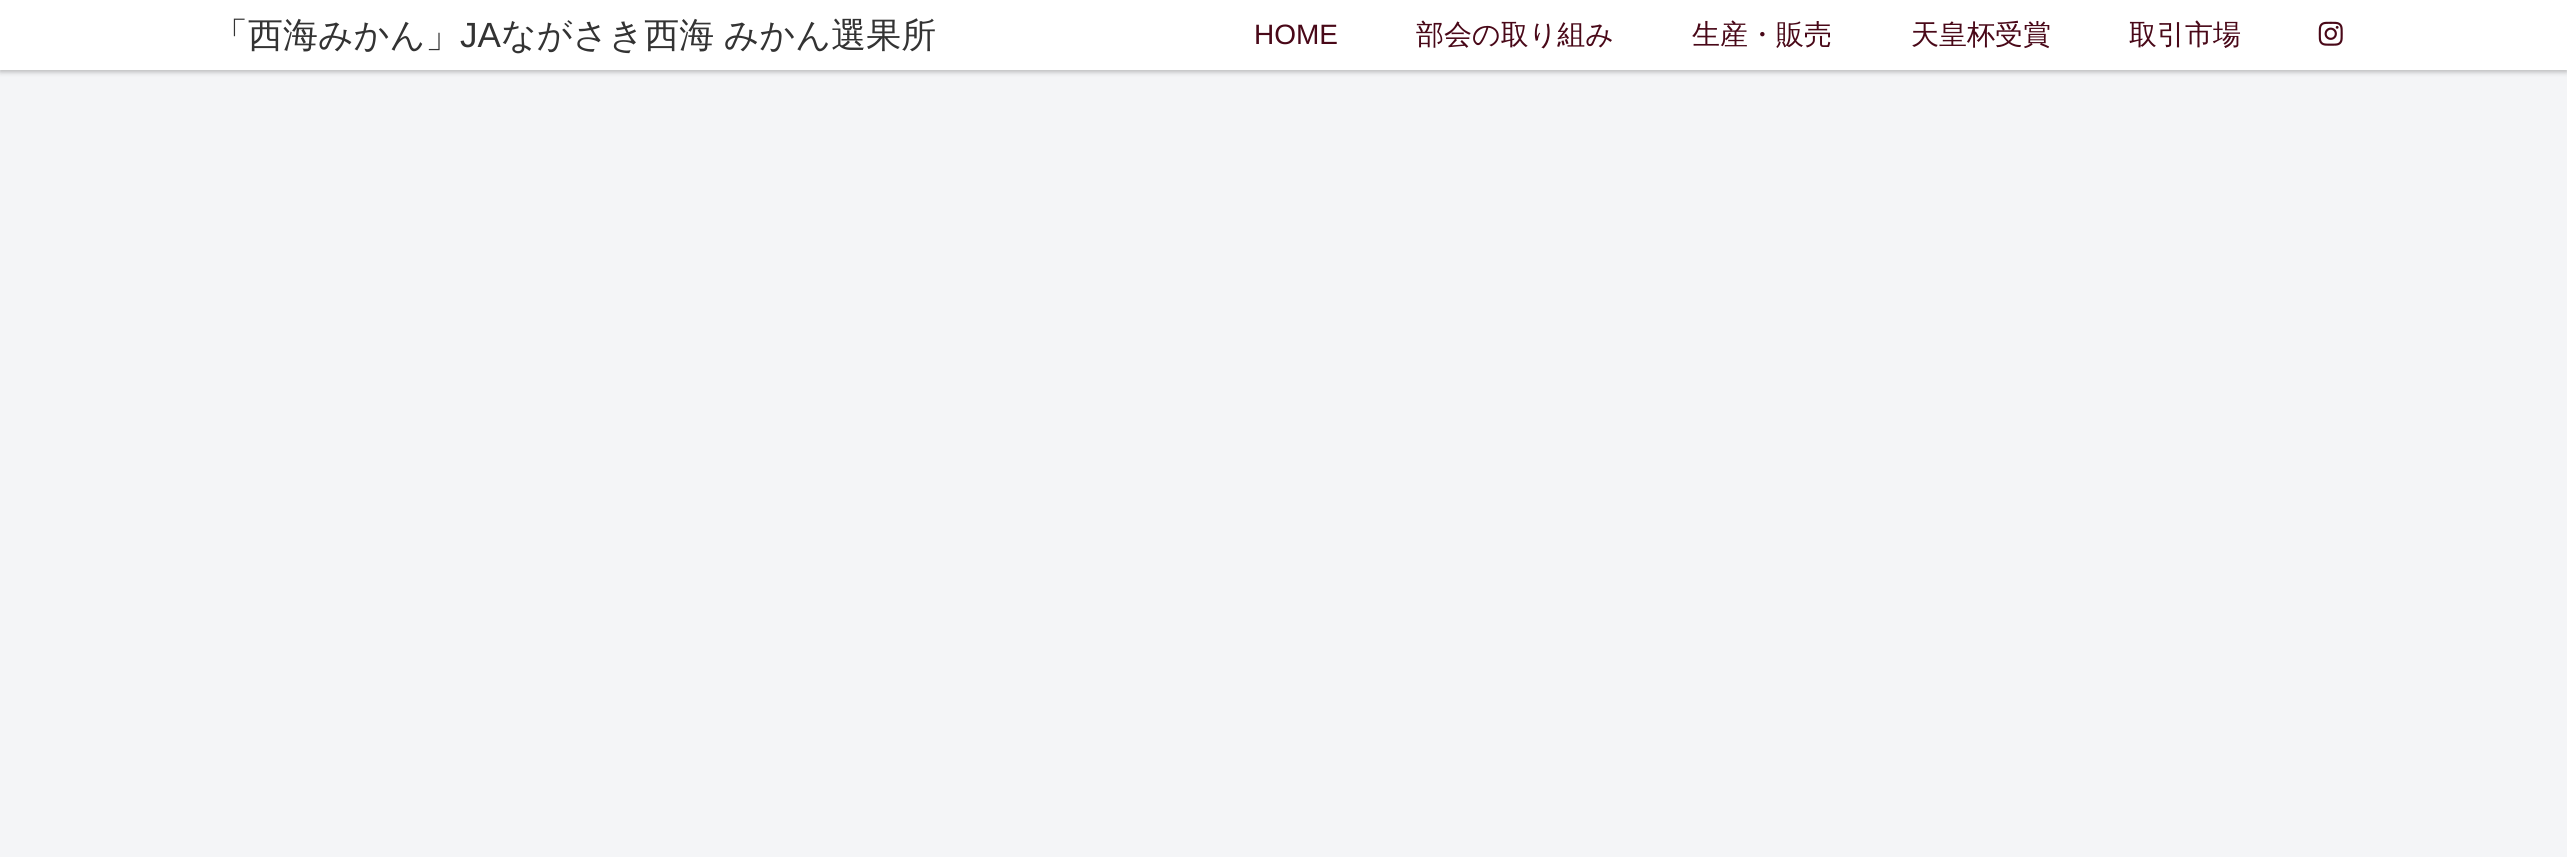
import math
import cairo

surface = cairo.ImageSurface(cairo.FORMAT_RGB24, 2567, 857)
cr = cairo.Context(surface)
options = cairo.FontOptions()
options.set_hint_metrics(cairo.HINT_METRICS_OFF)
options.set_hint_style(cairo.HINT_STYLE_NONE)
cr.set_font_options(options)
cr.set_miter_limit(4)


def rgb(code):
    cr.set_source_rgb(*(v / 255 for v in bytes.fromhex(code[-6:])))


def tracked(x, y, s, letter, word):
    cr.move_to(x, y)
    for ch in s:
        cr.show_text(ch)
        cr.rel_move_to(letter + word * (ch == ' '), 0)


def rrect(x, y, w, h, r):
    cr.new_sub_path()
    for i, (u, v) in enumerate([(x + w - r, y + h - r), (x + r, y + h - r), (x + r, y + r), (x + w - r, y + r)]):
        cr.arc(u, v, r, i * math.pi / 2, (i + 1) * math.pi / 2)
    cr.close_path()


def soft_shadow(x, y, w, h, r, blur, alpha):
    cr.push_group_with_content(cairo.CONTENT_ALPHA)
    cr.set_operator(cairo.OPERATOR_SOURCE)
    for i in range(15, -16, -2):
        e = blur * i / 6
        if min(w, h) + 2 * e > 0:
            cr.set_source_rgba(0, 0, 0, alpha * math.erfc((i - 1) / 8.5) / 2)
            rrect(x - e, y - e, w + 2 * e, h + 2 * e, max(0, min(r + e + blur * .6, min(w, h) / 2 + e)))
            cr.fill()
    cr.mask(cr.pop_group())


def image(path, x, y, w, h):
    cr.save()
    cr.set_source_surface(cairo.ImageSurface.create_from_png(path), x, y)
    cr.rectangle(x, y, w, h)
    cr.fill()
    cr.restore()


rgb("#f4f5f7")
cr.paint()
rgb("#000000")
soft_shadow(0, 2, 2567, 70, 0, 2.5, 0.25)
rgb("#ffffff")
cr.rectangle(0, 0, 2567, 70)
cr.fill()
image("img/1.png", 2318, 21, 25, 25)
cr.select_font_face("WenQuanYi Zen Hei Medium")
cr.set_font_size(35)
rgb("#333333")
cr.move_to(213, 47)
cr.show_text("「西海みかん」")
cr.select_font_face("Liberation Sans")
cr.move_to(460, 47)
cr.show_text("JA")
cr.select_font_face("WenQuanYi Zen Hei Medium")
tracked(501, 47, "ながさき西海 みかん選果所", 0, -1)
cr.select_font_face("Liberation Sans")
cr.set_font_size(28)
rgb("#490818")
cr.move_to(1254, 44)
cr.show_text("HOME")
cr.select_font_face("WenQuanYi Zen Hei Medium")
for x, y, s in [
    (1416, 44, "部会の取り組み"),
    (1692, 44, "生産・販売"),
    (1911, 44, "天皇杯受賞"),
    (2129, 44, "取引市場"),
]:
    cr.move_to(x, y)
    cr.show_text(s)
surface.write_to_png("page.png")
